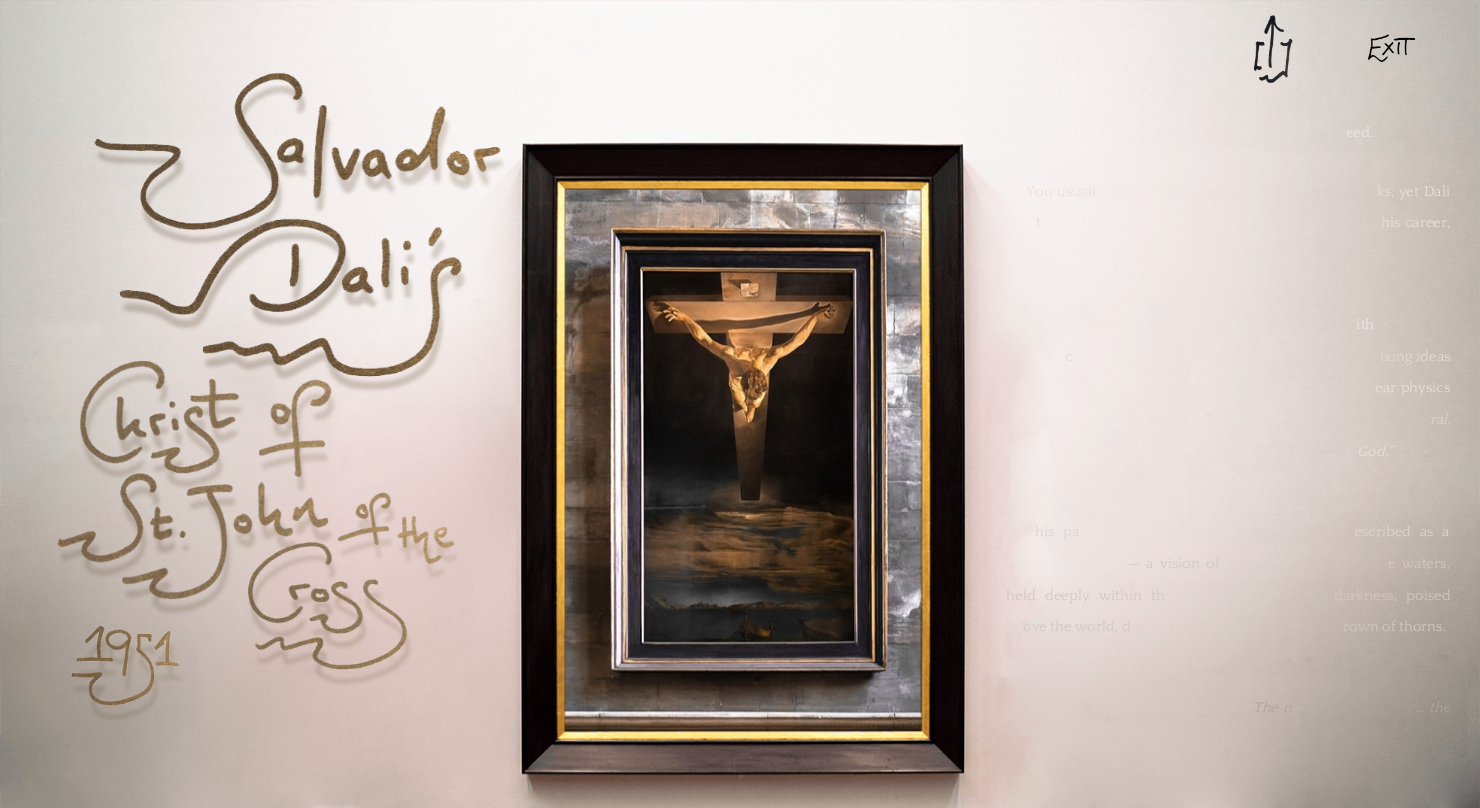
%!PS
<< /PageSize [1480 808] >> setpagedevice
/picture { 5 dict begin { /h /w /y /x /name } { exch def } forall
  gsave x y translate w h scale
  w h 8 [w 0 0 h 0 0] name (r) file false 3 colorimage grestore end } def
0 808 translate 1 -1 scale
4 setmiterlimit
1 setgray
0 0 1480 808 rectfill
(img8.rgb) 556 181 375 594 picture
(img1.rgb) 0 0 1480 808 picture
(img2.rgb) 1264 15 21 53 picture
(img4.rgb) 1253 41 12 31 picture
(img3.rgb) 1259 38 34 46 picture
(img5.rgb) 1367 34 49 29 picture
(img6.rgb) 57 72 444 634 picture
(img7.rgb) 60 85 444 636 picture
/Quattrocento-Bold [14.75 0 0 -14.75 0 0] selectfont
0.914 0.875 0.863 setrgbcolor
1346 137 moveto (eed.) show
/Quattrocento-Regular [14.75 0 0 -14.75 0 0] selectfont
1026 196 moveto 1 0 32 (You usuall) widthshow
1377 196 moveto 1 0 32 (ks, yet Dali) widthshow
1036 227 moveto 1 0 32 (t) widthshow
1381 227 moveto 1 0 32 (his career,) widthshow
/Quattrocento-Bold [14.75 0 0 -14.75 0 0] selectfont
1356 329 moveto 1 0 32 (ith) widthshow
/Quattrocento-Regular [14.75 0 0 -14.75 0 0] selectfont
0.894 0.855 0.839 setrgbcolor
1065 361 moveto (c) show
1380 361 moveto (ixing ideas) show
0.914 0.875 0.863 setrgbcolor
1375 392 moveto 1 0 32 (ear physics) widthshow
/Quattrocento-Italic [14.75 0 0 -14.75 0 0] selectfont
0.875 0.831 0.812 setrgbcolor
1203 424 moveto 8 0 32 (“) widthshow
1430 424 moveto 8 0 32 (ral,) widthshow
0.914 0.875 0.863 setrgbcolor
1357 456 moveto (God.”) show
/Quattrocento-Regular [14.75 0 0 -14.75 0 0] selectfont
0.875 0.831 0.812 setrgbcolor
1035 536 moveto 5 0 32 (his pa) widthshow
1354 536 moveto 5 0 32 (escribed as a) widthshow
0.831 0.784 0.765 setrgbcolor
1128 568 moveto 3 0 32 (— a vision of) widthshow
1388 568 moveto 3 0 32 (e waters,) widthshow
1006 600 moveto 6 0 32 (held deeply within th) widthshow
1334 600 moveto 6 0 32 (darkness, poised) widthshow
1023 631 moveto (ove the world, d) show
1343 631 moveto (rown of thorns.) show
/Quattrocento-Italic [14.75 0 0 -14.75 0 0] selectfont
0.69 0.647 0.616 setrgbcolor
1253 712 moveto 1 0 32 (The n) widthshow
gsave
1006 692 444 74 rectclip
1415 712 moveto 1 0 32 (... the) widthshow
grestore
showpage
